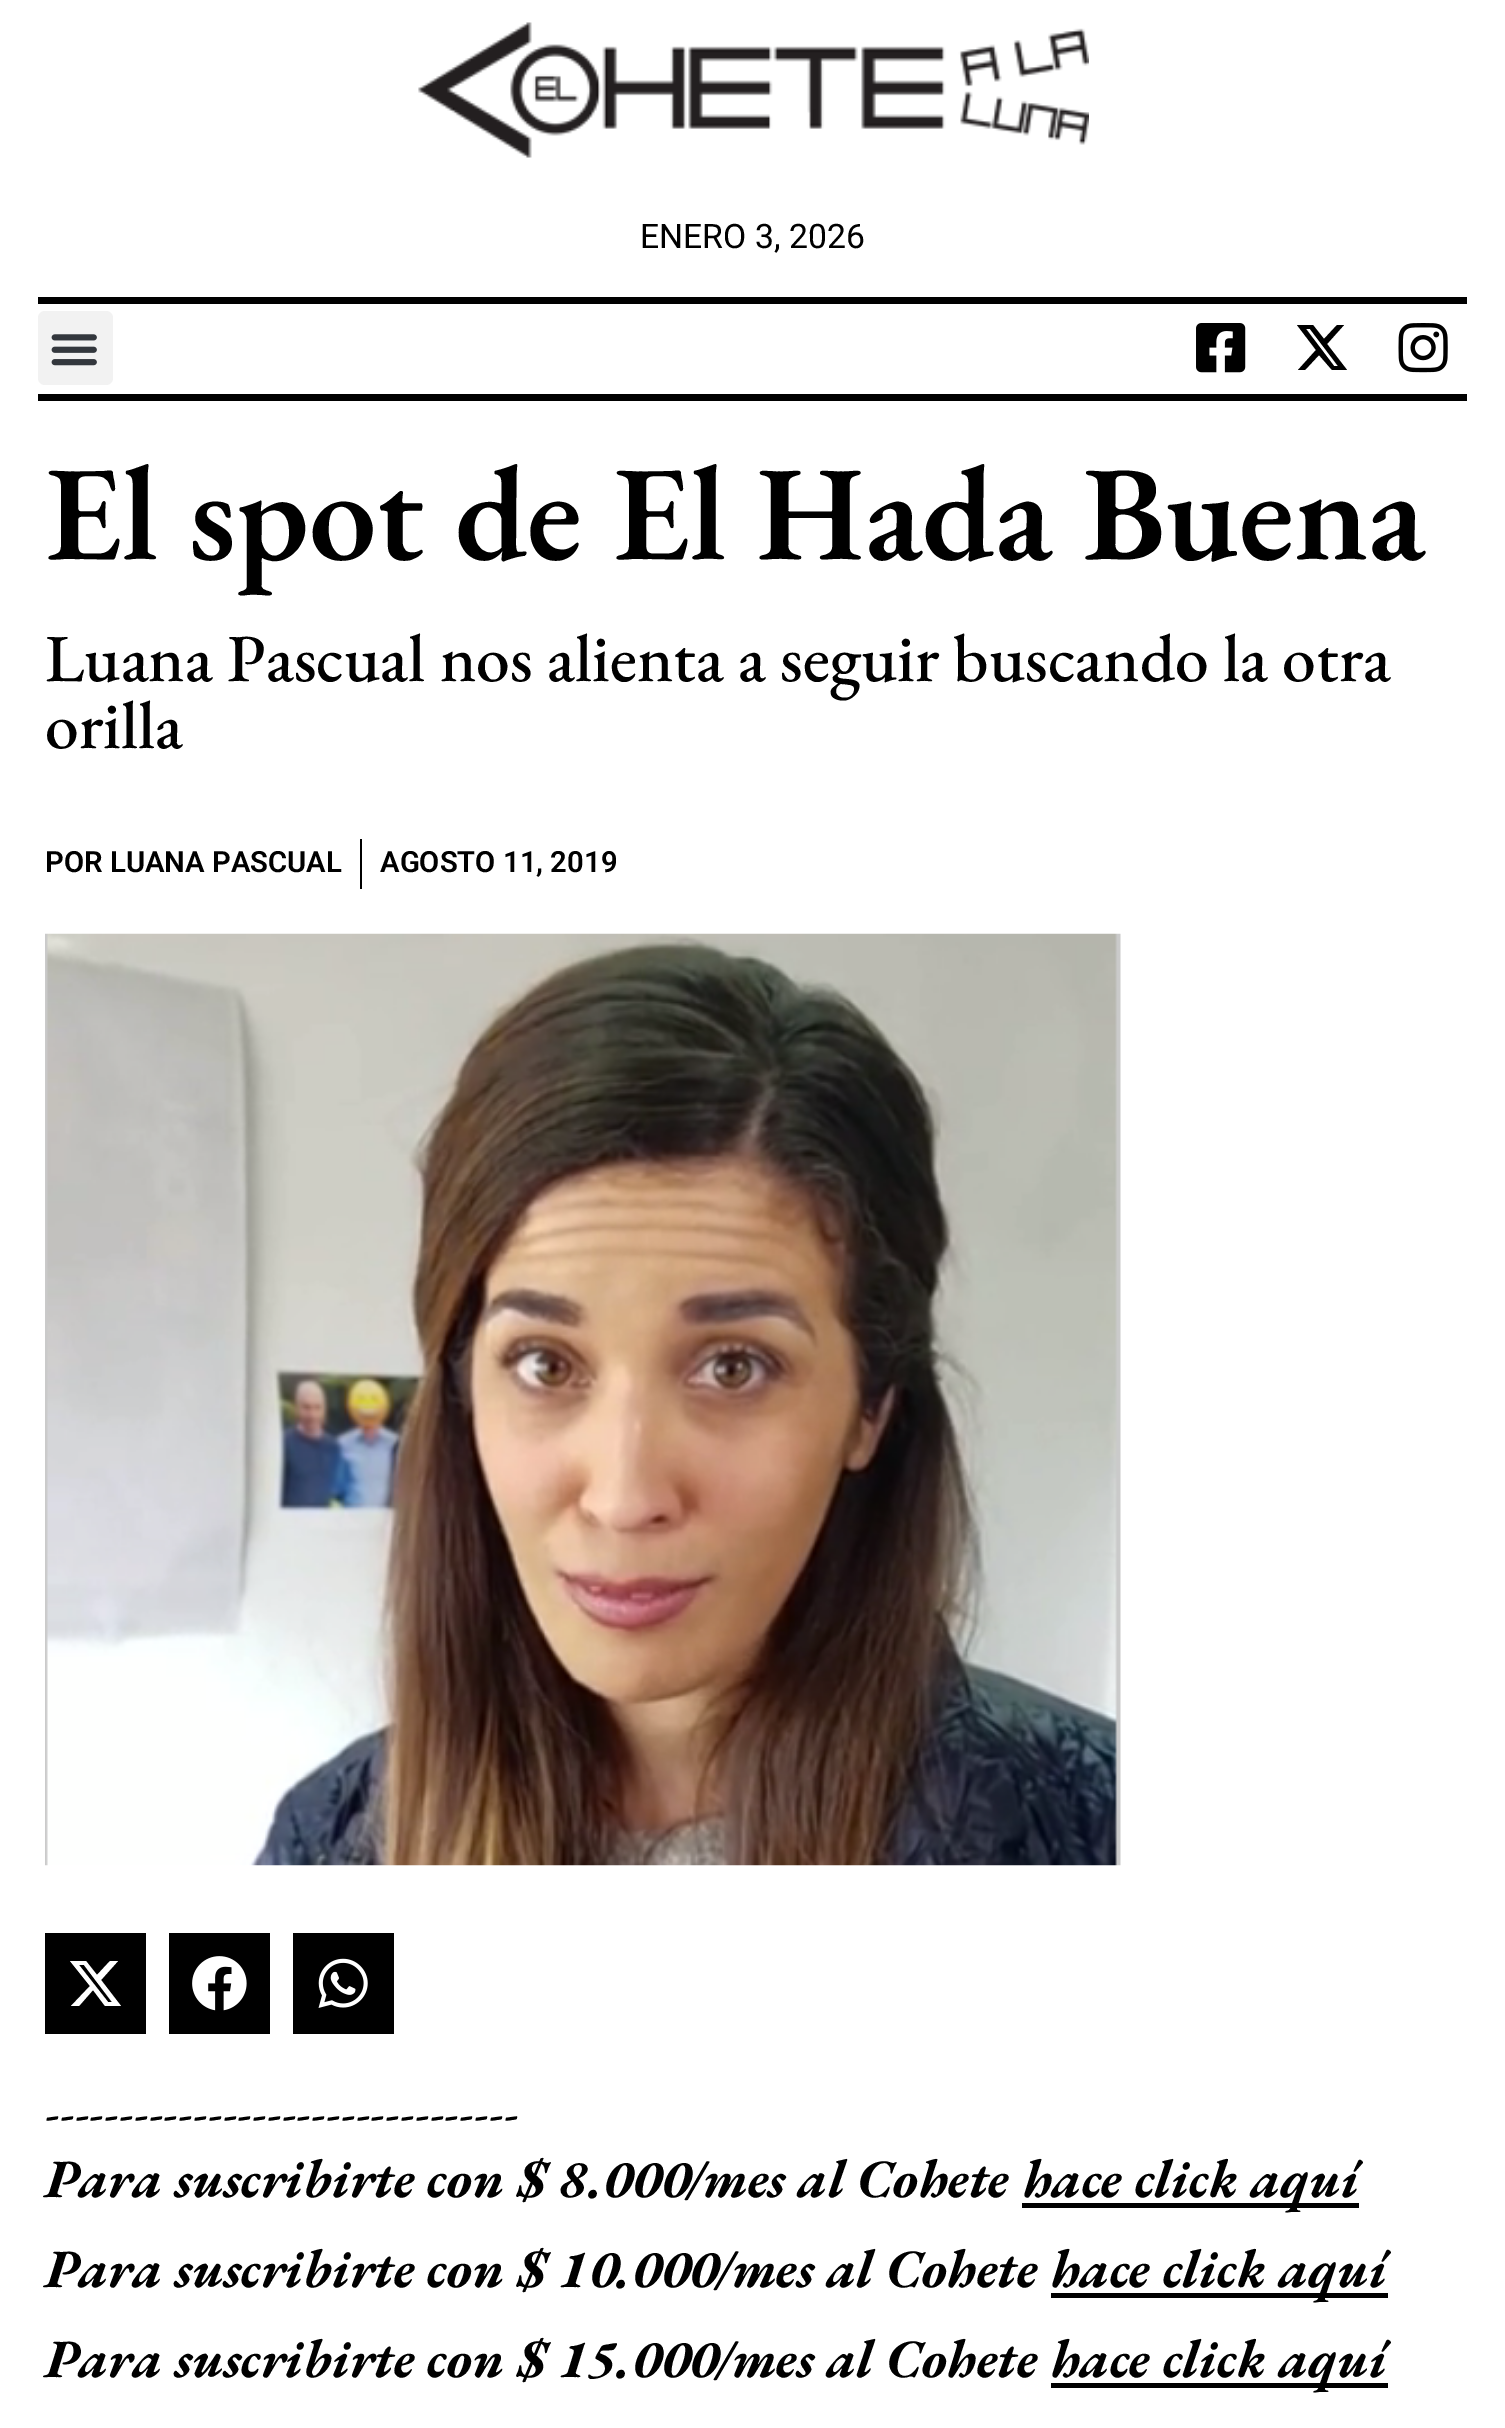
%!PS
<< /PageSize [1505 2428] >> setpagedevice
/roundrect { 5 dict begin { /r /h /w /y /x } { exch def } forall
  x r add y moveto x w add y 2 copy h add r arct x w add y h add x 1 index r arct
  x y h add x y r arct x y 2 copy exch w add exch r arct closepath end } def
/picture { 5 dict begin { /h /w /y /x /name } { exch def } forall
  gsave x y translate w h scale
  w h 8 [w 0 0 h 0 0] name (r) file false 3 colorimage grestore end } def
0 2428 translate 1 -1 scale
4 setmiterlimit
1 setgray
0 0 1505 2428 rectfill
(img1.rgb) 418 22 671 136 picture
/Roboto-Regular [33.75 0 0 -33.75 0 0] selectfont
0 setgray
640 248 moveto (ENERO 3, 2026) show
38 297 1429 7 rectfill
38 394 1429 7 rectfill
0.949 setgray
38 311 75 74 7 roundrect fill
(img2.rgb) 51 334 46 32 picture
(img3.rgb) 1196 323 50 50 picture
0 setgray
newpath 1337 325 moveto 1344 325 lineto 1327 344 lineto 1347 370 lineto 1332 370 lineto 1319 355 lineto 1305 370 lineto 1298 370 lineto 1316 350 lineto 1297 325 lineto 1313 325 lineto 1324 339 lineto closepath 1334 366 moveto 1338 366 lineto 1310 329 lineto 1306 329 lineto closepath fill
(img4.rgb) 1398 323 50 50 picture
/EBGaramond-SemiBold [135 0 0 -135 0 0] selectfont
45 559 moveto (El spot de El Hada Buena) show
/EBGaramond-Medium [67.5 0 0 -67.5 0 0] selectfont
45 681 moveto (Luana Pascual nos alienta a seguir buscando la otra) show
45 748 moveto (orilla) show
/Roboto-SemiBold [29.25 0 0 -29.25 0 0] selectfont
45 872 moveto (POR LUANA PASCUAL) show
360 839 2 50 rectfill
380 872 moveto (AGOSTO 11, 2019) show
(img5.rgb) 45 933 1076 933 picture
45 1933 101 101 rectfill
1 setgray
newpath 110 1961 moveto 118 1961 lineto 101 1980 lineto 121 2006 lineto 105 2006 lineto 93 1990 lineto 79 2006 lineto 71 2006 lineto 90 1986 lineto 70 1961 lineto 86 1961 lineto 97 1975 lineto closepath 108 2002 moveto 112 2002 lineto 84 1965 lineto 79 1965 lineto closepath fill
0 setgray
169 1933 101 101 rectfill
(img6.rgb) 192 1956 55 55 picture
293 1933 101 101 rectfill
(img7.rgb) 318 1958 50 50 picture
/EBGaramond-Regular [54 0 0 -54 0 0] selectfont
45 2130 moveto (--------------------------------) show
/EBGaramond-BoldItalic [54 0 0 -54 0 0] selectfont
45 2197 moveto (Para suscribirte con $ 8.000/mes al Cohete) show
1022 2203 337 5 rectfill
1022 2197 moveto (hace click aquí) show
45 2287 moveto (Para suscribirte con $ 10.000/mes al Cohete) show
1051 2293 337 5 rectfill
1050 2287 moveto (hace click aquí) show
45 2377 moveto (Para suscribirte con $ 15.000/mes al Cohete) show
1051 2383 337 5 rectfill
1050 2377 moveto (hace click aquí) show
showpage
